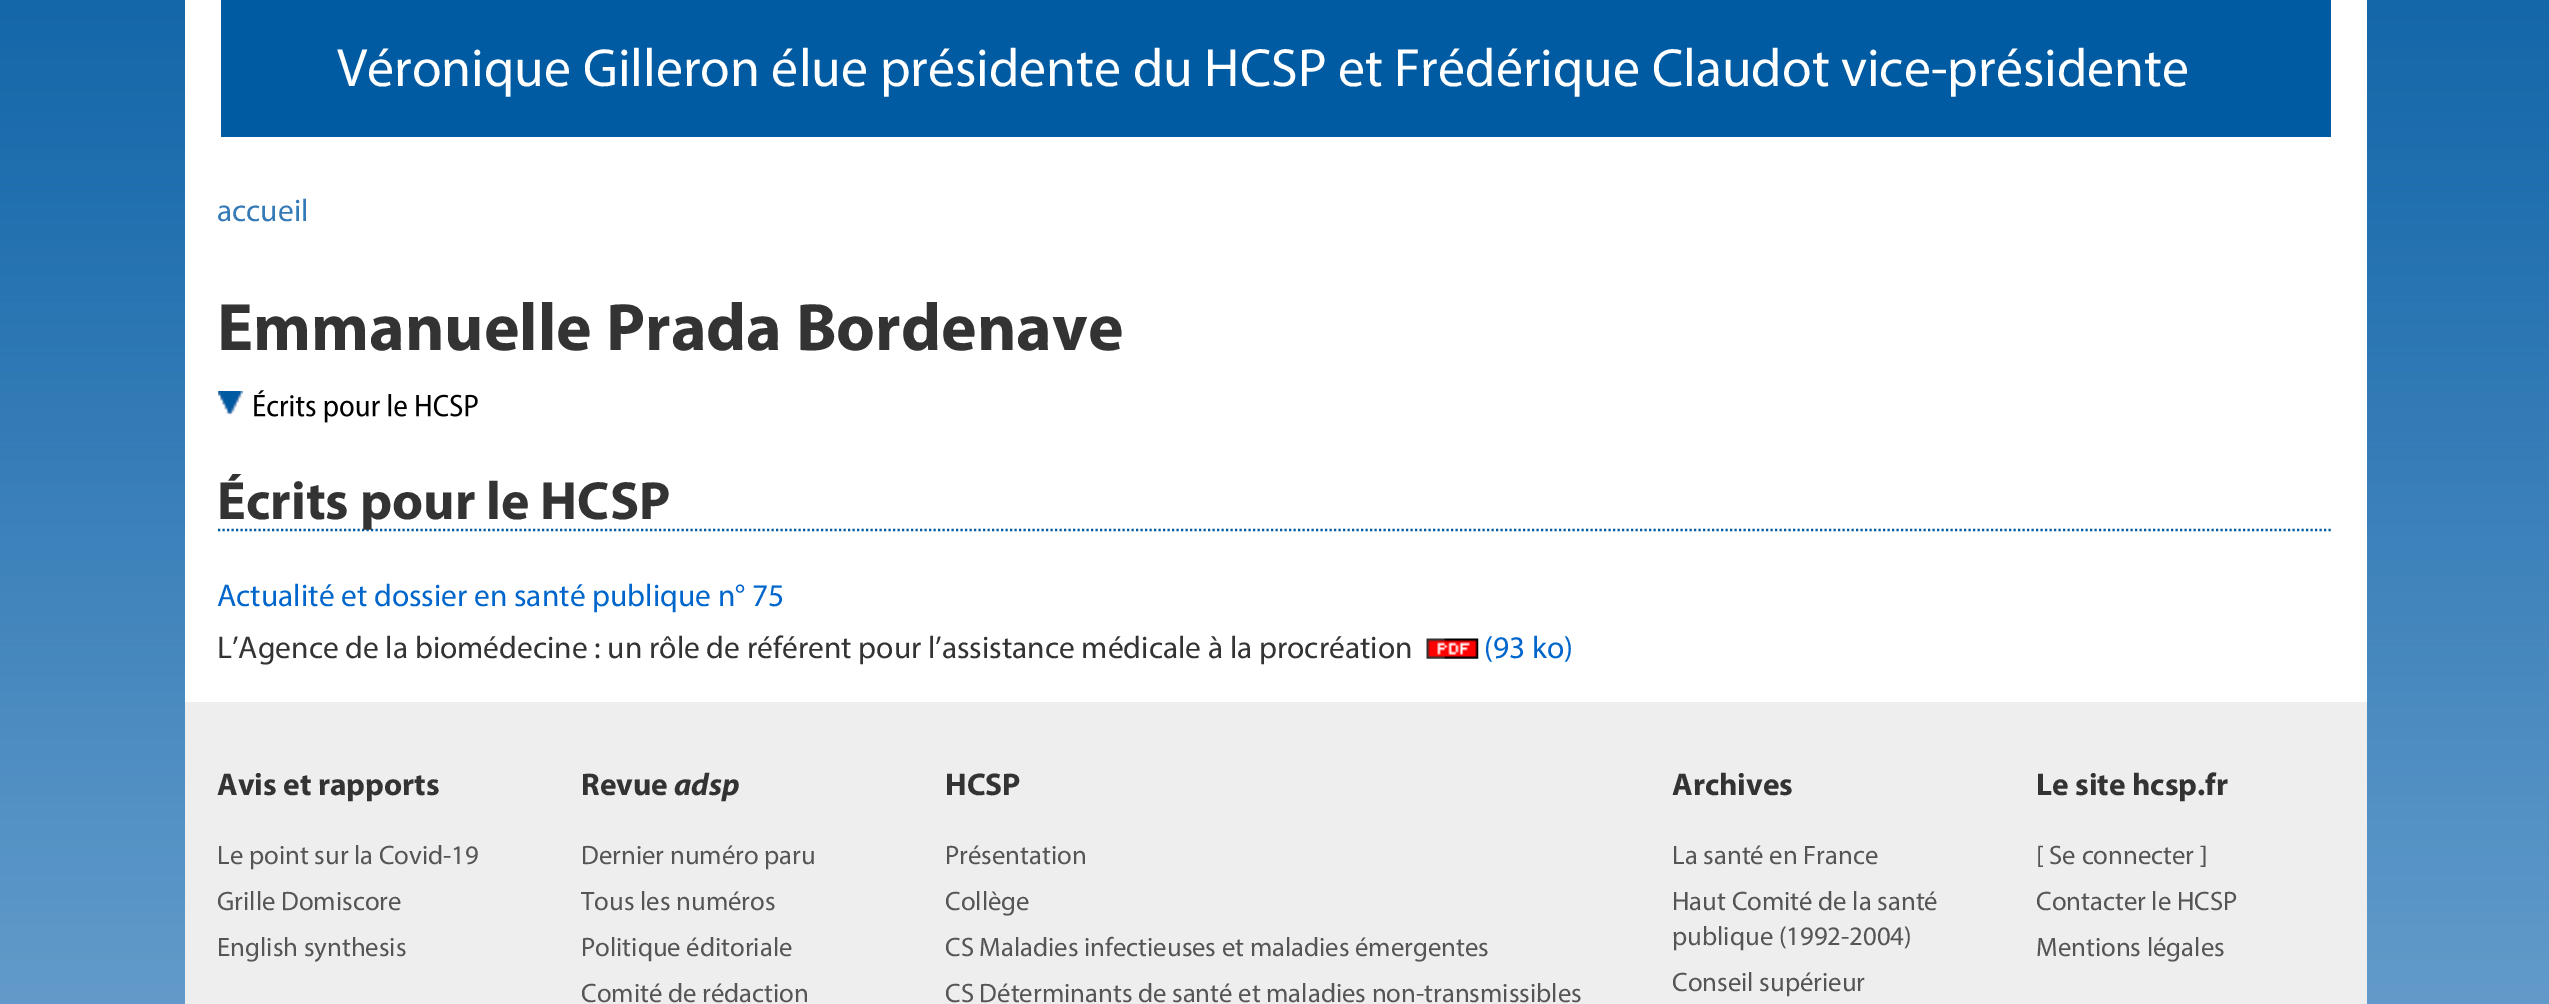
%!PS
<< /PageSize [2549 1004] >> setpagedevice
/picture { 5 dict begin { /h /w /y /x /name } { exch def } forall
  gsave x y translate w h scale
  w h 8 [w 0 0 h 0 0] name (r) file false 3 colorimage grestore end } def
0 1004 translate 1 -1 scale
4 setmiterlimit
1 setgray
0 0 2549 1004 rectfill
(img1.rgb) 0 0 2549 1004 picture
185 0 2182 702 rectfill
0 0.357 0.635 setrgbcolor
221 0 2110 137 rectfill
/Myriad-Regular [54 0 0 -54 0 0] selectfont
1 setgray
337 86 moveto (Véronique Gilleron élue présidente du HCSP et Frédérique Claudot vice-présidente) show
/Myriad-Regular [31.5 0 0 -31.5 0 0] selectfont
0.2 0.478 0.718 setrgbcolor
217 221 moveto (accueil) show
/Myriad-Bold [67.5 0 0 -67.5 0 0] selectfont
0.2 setgray
217 350 moveto (Emmanuelle Prada Bordenave) show
(img2.rgb) 218 391 25 25 picture
(img3.rgb) 254 390 224 33 picture
0 0.357 0.635 setrgbcolor
2.2 setlinewidth
[2.25 2.25] 0 setdash
newpath 218 530 moveto 2333 530 lineto stroke
/Myriad-Bold [54 0 0 -54 0 0] selectfont
0.2 setgray
217 519 moveto (Écrits pour le HCSP) show
/Myriad-Regular [31.5 0 0 -31.5 0 0] selectfont
0 0.4 0.8 setrgbcolor
217 606 moveto (Actualité et dossier en santé publique n° 75) show
0.2 setgray
217 658 moveto (L’Agence de la biomédecine : un rôle de référent pour l’assistance médicale à la procréation) show
(img4.rgb) 1426 638 53 21 picture
0 0.4 0.8 setrgbcolor
1484 658 moveto (\(93 ko\)) show
0.933 setgray
185 702 2182 302 rectfill
/Myriad-Bold [31.5 0 0 -31.5 0 0] selectfont
0.2 setgray
217 795 moveto (Avis et rapports) show
/Myriad-Regular [26.75 0 0 -26.75 0 0] selectfont
0.333 setgray
217 864 moveto (Le point sur la Covid-19) show
217 910 moveto (Grille Domiscore) show
217 956 moveto (English synthesis) show
/Myriad-Bold [31.5 0 0 -31.5 0 0] selectfont
0.2 setgray
581 795 moveto (Revue) show
/Myriad-BoldItalic [31.5 0 0 -31.5 0 0] selectfont
674 795 moveto (adsp) show
/Myriad-Regular [26.75 0 0 -26.75 0 0] selectfont
0.333 setgray
581 864 moveto (Dernier numéro paru) show
581 910 moveto (Tous les numéros) show
581 956 moveto (Politique éditoriale) show
581 1002 moveto (Comité de rédaction) show
/Myriad-Bold [31.5 0 0 -31.5 0 0] selectfont
0.2 setgray
945 795 moveto (HCSP) show
/Myriad-Regular [26.75 0 0 -26.75 0 0] selectfont
0.333 setgray
945 864 moveto (Présentation) show
945 910 moveto (Collège) show
945 956 moveto (CS Maladies infectieuses et maladies émergentes) show
945 1002 moveto (CS Déterminants de santé et maladies non-transmissibles) show
/Myriad-Bold [31.5 0 0 -31.5 0 0] selectfont
0.2 setgray
1672 795 moveto (Archives) show
/Myriad-Regular [26.75 0 0 -26.75 0 0] selectfont
0.333 setgray
1672 864 moveto (La santé en France) show
1672 910 moveto (Haut Comité de la santé) show
1672 945 moveto (publique \(1992-2004\)) show
1672 991 moveto (Conseil supérieur) show
/Myriad-Bold [31.5 0 0 -31.5 0 0] selectfont
0.2 setgray
2036 795 moveto (Le site hcsp.fr) show
/Myriad-Regular [26.75 0 0 -26.75 0 0] selectfont
0.333 setgray
2036 864 moveto ([ Se connecter ]) show
2036 910 moveto (Contacter le HCSP) show
2036 956 moveto (Mentions légales) show
showpage
